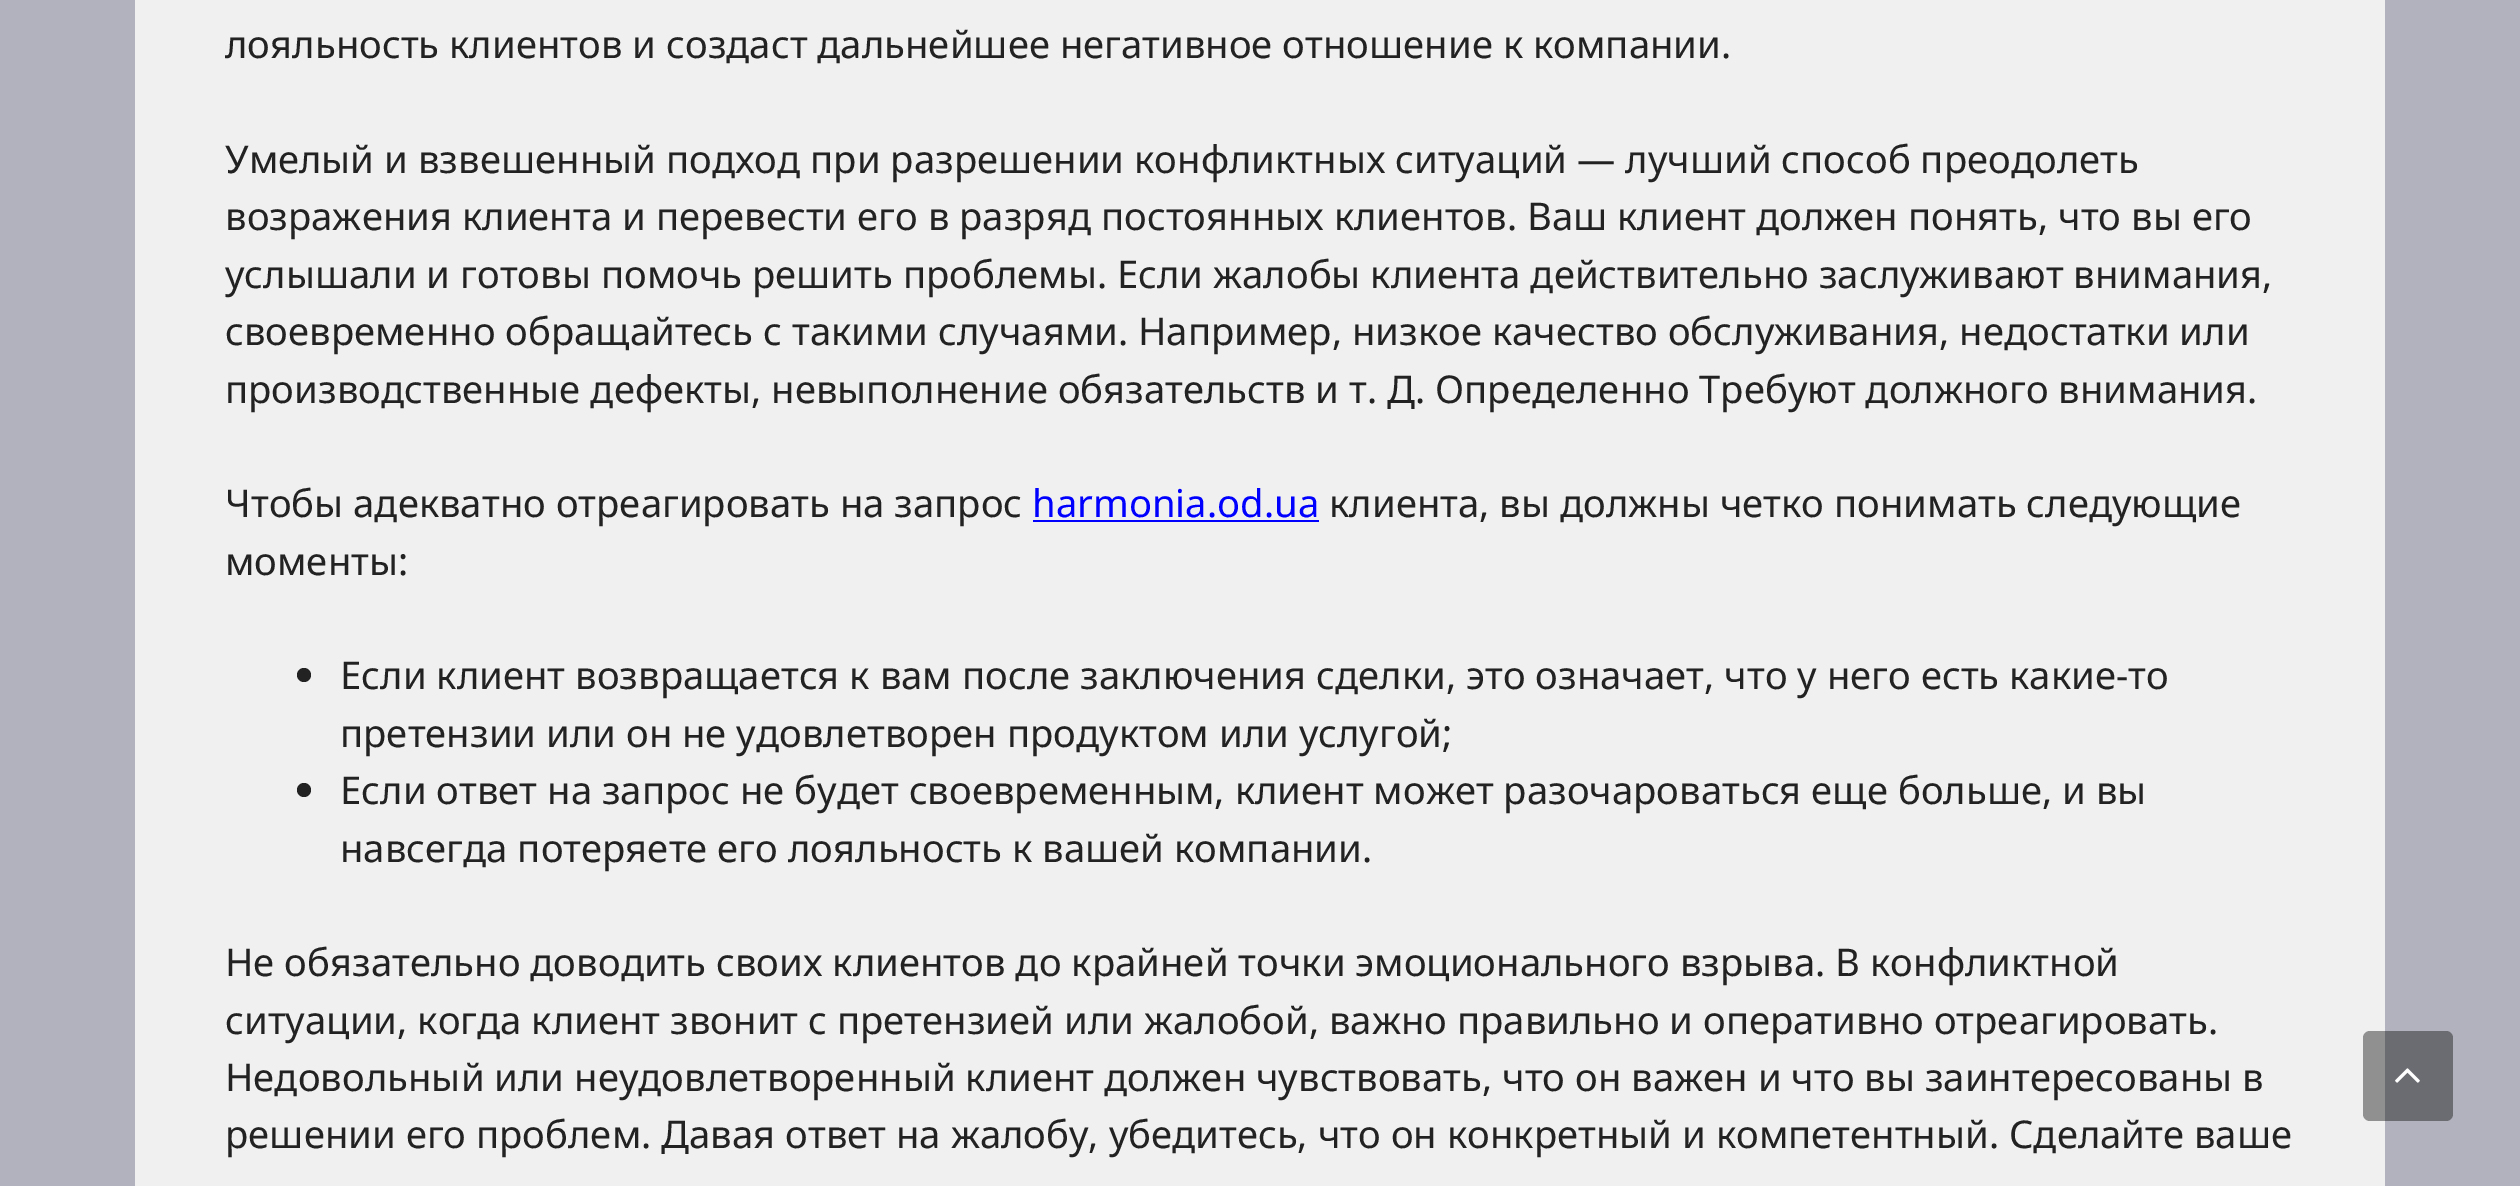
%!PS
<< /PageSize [2520 1186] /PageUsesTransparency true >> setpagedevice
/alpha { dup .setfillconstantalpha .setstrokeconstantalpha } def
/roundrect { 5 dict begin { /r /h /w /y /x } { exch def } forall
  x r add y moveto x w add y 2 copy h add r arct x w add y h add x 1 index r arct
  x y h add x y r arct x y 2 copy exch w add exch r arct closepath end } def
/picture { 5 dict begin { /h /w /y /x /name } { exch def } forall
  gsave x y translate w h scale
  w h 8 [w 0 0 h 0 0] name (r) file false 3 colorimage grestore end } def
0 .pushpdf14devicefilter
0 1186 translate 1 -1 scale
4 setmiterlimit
0.698 0.698 0.745 setrgbcolor
0 0 2520 1186 rectfill
0.941 setgray
135 0 2250 1186 rectfill
/NotoSans-Regular [38.25 0 0 -38.25 0 0] selectfont
0.133 setgray
225 58 moveto (лояльность клиентов и создаст дальнейшее негативное отношение к компании.) show
225 173 moveto (Умелый и взвешенный подход при разрешении конфликтных ситуаций — лучший способ преодолеть) show
225 230 moveto (возражения клиента и перевести его в разряд постоянных клиентов. Ваш клиент должен понять, что вы его) show
225 288 moveto (услышали и готовы помочь решить проблемы. Если жалобы клиента действительно заслуживают внимания,) show
225 345 moveto (своевременно обращайтесь с такими случаями. Например, низкое качество обслуживания, недостатки или) show
225 403 moveto (производственные дефекты, невыполнение обязательств и т. Д. Определенно Требуют должного внимания.) show
225 517 moveto (Чтобы адекватно отреагировать на запрос) show
0 0 1 setrgbcolor
1032 517 moveto (harmonia.od.ua) show
1033 520 286 2 rectfill
0.133 setgray
1329 517 moveto (клиента, вы должны четко понимать следующие) show
225 575 moveto (моменты:) show
newpath 304 675 7 0 360 arc closepath fill
340 689 moveto (Если клиент возвращается к вам после заключения сделки, это означает, что у него есть какие-то) show
340 747 moveto (претензии или он не удовлетворен продуктом или услугой;) show
newpath 304 790 7 0 360 arc closepath fill
340 804 moveto (Если ответ на запрос не будет своевременным, клиент может разочароваться еще больше, и вы) show
340 862 moveto (навсегда потеряете его лояльность к вашей компании.) show
225 976 moveto (Не обязательно доводить своих клиентов до крайней точки эмоционального взрыва. В конфликтной) show
225 1034 moveto (ситуации, когда клиент звонит с претензией или жалобой, важно правильно и оперативно отреагировать.) show
225 1091 moveto (Недовольный или неудовлетворенный клиент должен чувствовать, что он важен и что вы заинтересованы в) show
225 1148 moveto (решении его проблем. Давая ответ на жалобу, убедитесь, что он конкретный и компетентный. Сделайте ваше) show
0.4 alpha
0 setgray
2363 1031 90 90 7 roundrect fill
1 alpha
(img1.rgb) 2395 1068 25 15 picture
.poppdf14devicefilter showpage
